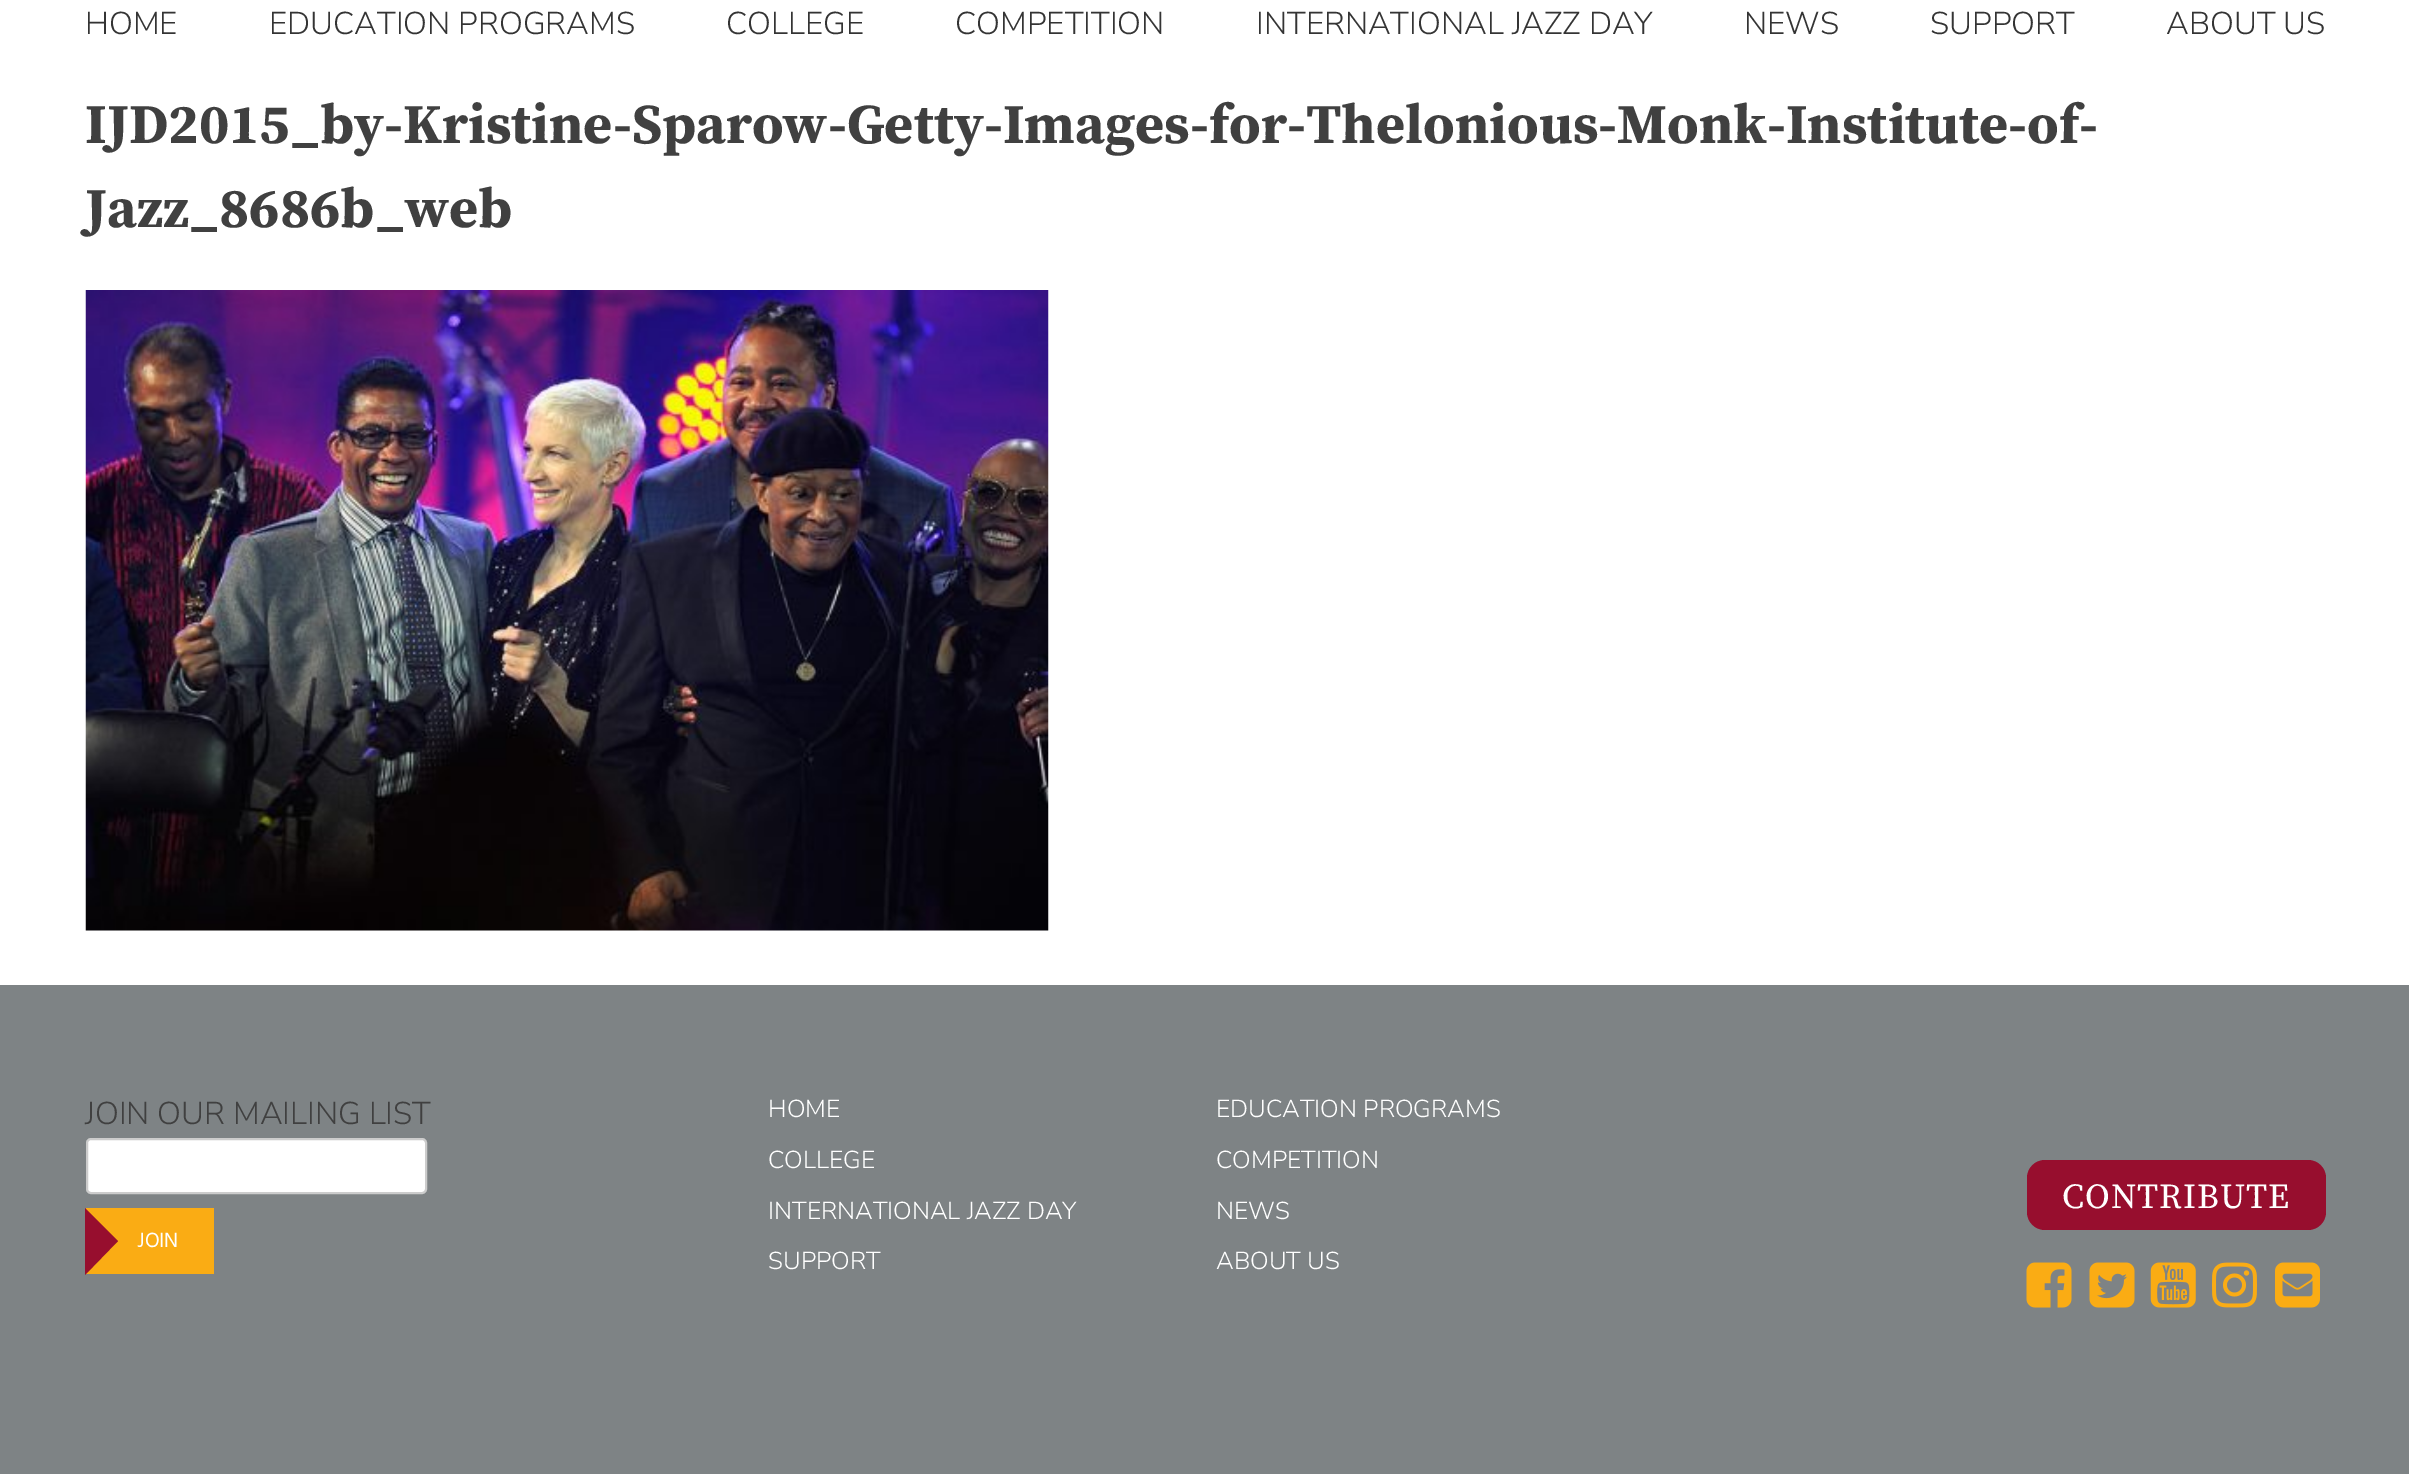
%!PS
<< /PageSize [2409 1474] >> setpagedevice
/roundrect { 5 dict begin { /r /h /w /y /x } { exch def } forall
  x r add y moveto x w add y 2 copy h add r arct x w add y h add x 1 index r arct
  x y h add x y r arct x y 2 copy exch w add exch r arct closepath end } def
/picture { 5 dict begin { /h /w /y /x /name } { exch def } forall
  gsave x y translate w h scale
  w h 8 [w 0 0 h 0 0] name (r) file false 3 colorimage grestore end } def
0 1474 translate 1 -1 scale
4 setmiterlimit
1 setgray
0 0 2409 1474 rectfill
/NunitoSans-Light [31.5 0 0 -31.5 0 0] selectfont
0.204 setgray
85 34 moveto (HOME) show
269 34 moveto (EDUCATION PROGRAMS) show
726 34 moveto (COLLEGE) show
955 34 moveto (COMPETITION) show
1256 34 moveto (INTERNATIONAL JAZZ DAY) show
1744 34 moveto (NEWS) show
1930 34 moveto (SUPPORT) show
2166 34 moveto (ABOUT US) show
/SourceSerifPro-Bold [56 0 0 -56 0 0] selectfont
0.251 setgray
85 143 moveto (IJD2015_by-Kristine-Sparow-Getty-Images-for-Thelonious-Monk-Institute-of-) show
85 227 moveto (Jazz_8686b_web) show
(img1.rgb) 85 290 964 641 picture
0.494 0.514 0.522 setrgbcolor
0 985 2409 489 rectfill
/NunitoSans-Light [31.5 0 0 -31.5 0 0] selectfont
0.251 setgray
85 1124 moveto (JOIN OUR MAILING LIST) show
1 setgray
87 1139 339 54 4 roundrect gsave fill grestore
0.8 setgray
2 setlinewidth
stroke
0.98 0.675 0.078 setrgbcolor
86 1208 128 66 rectfill
0.592 0.055 0.18 setrgbcolor
newpath 85 1208 moveto 85 1275 lineto 118 1241 lineto closepath fill
/HindSiliguri-Regular [21 0 0 -21 0 0] selectfont
1 setgray
137 1247 moveto (JOIN) show
/NunitoSans-Light [24.5 0 0 -24.5 0 0] selectfont
768 1117 moveto (HOME) show
1216 1117 moveto (EDUCATION PROGRAMS) show
768 1168 moveto (COLLEGE) show
1216 1168 moveto (COMPETITION) show
768 1219 moveto (INTERNATIONAL JAZZ DAY) show
1216 1219 moveto (NEWS) show
768 1269 moveto (SUPPORT) show
1216 1269 moveto (ABOUT US) show
0.592 0.055 0.18 setrgbcolor
2027 1160 299 70 18 roundrect fill
/SourceSerifPro-Regular [35 0 0 -35 0 0] selectfont
1 setgray
2062 1208 moveto 0.9 0 (CONTRIBUTE) ashow
(img2.rgb) 2026 1262 46 46 picture
(img3.rgb) 2089 1262 46 46 picture
(img4.rgb) 2150 1262 46 46 picture
(img5.rgb) 2212 1262 45 46 picture
(img6.rgb) 2275 1262 45 46 picture
showpage
